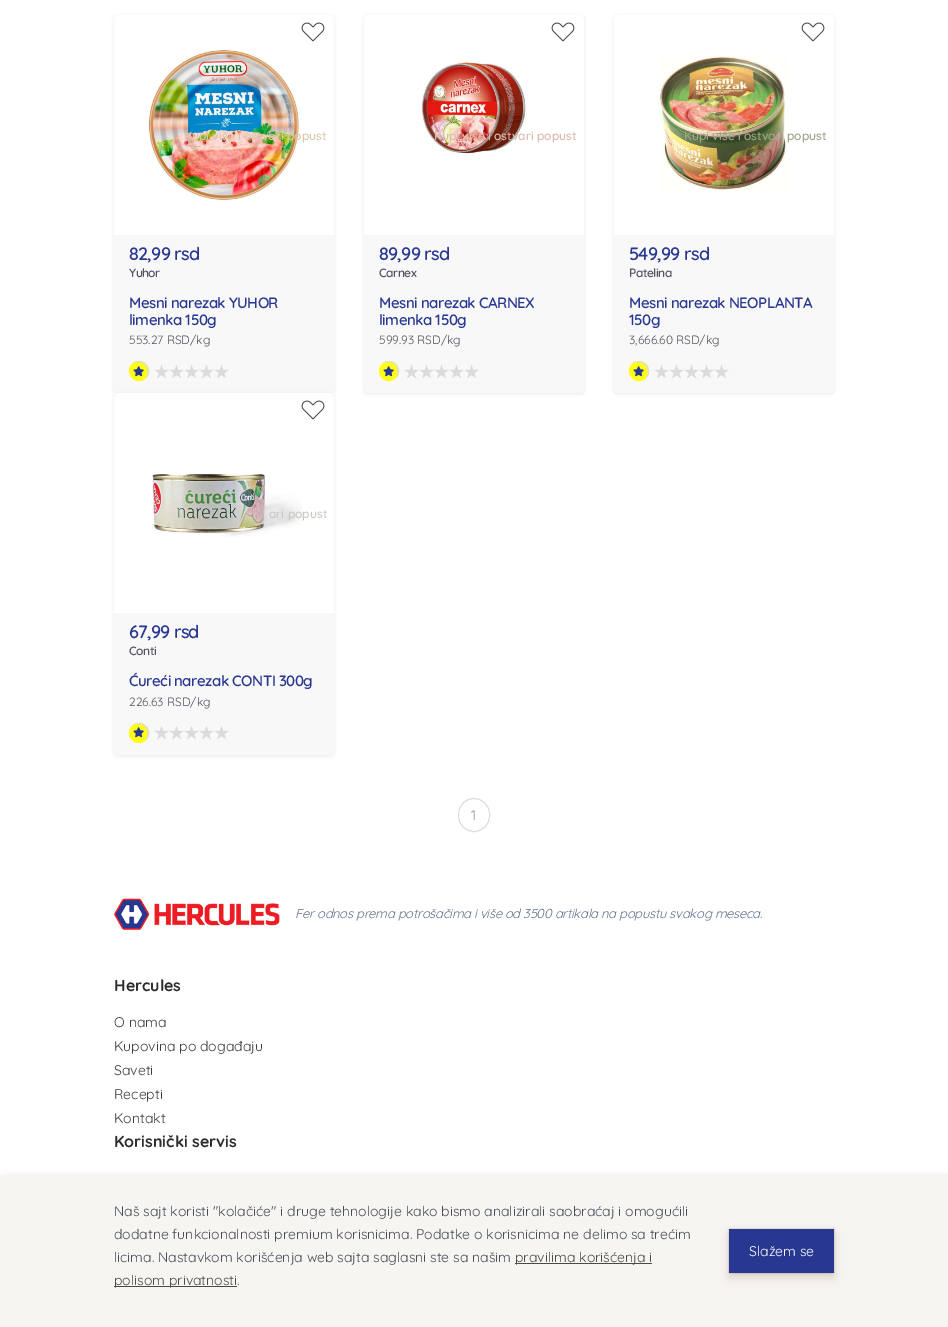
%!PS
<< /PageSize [948 1327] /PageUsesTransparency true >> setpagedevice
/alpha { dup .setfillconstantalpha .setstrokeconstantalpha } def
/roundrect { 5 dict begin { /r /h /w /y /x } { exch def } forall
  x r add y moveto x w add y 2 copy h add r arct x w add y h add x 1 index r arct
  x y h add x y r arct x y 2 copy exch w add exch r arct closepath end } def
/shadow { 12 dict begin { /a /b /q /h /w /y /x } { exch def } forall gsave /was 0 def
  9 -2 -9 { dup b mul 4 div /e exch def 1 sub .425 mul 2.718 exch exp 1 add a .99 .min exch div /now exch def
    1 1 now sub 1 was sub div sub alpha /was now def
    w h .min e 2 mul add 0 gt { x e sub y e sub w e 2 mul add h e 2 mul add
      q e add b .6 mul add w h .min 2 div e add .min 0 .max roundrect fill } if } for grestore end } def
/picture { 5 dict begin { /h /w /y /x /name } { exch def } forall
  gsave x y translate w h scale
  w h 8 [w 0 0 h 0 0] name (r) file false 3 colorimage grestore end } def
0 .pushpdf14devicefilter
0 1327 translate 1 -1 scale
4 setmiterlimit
1 setgray
0 0 948 1327 rectfill
gsave
newpath 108 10 moveto 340 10 lineto 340 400 lineto 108 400 lineto closepath 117 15 moveto 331 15 lineto 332.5 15 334 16.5 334 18 curveto 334 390 lineto 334 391.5 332.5 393 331 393 curveto 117 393 lineto 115.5 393 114 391.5 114 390 curveto 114 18 lineto 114 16.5 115.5 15 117 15 curveto closepath eoclip newpath
0.114 0.208 0.365 setrgbcolor
114 16 220 378 3 1.5 0.1 shadow
grestore
(img1.rgb) 301 22 24 20 picture
(img2.rgb) 148 49 153 153 picture
/Quicksand-SemiBold [12 0 0 -12 0 0] selectfont
0.847 0.788 0.655 setrgbcolor
184 140 moveto (Kupi više i ostvari popust) show
0.77 alpha
0.965 0.965 0.969 setrgbcolor
114 235 220 158 rectfill
/Quicksand-SemiBold [18 0 0 -18 0 0] selectfont
1 alpha
0.157 0.22 0.569 setrgbcolor
129 260 moveto -0.75 0 (82,99 rsd) ashow
/Quicksand-SemiBold [12 0 0 -12 0 0] selectfont
0.322 0.322 0.376 setrgbcolor
129 277 moveto -0.5 0 (Yuhor) ashow
/Quicksand-SemiBold [15 0 0 -15 0 0] selectfont
0.157 0.22 0.569 setrgbcolor
129 308 moveto -0.5 0 (Mesni narezak YUHOR) ashow
129 325 moveto -0.5 0 (limenka 150g) ashow
/Quicksand-Regular [12 0 0 -12 0 0] selectfont
0.322 0.322 0.376 setrgbcolor
129 344 moveto (553.27 RSD/kg) show
1 1 0.075 setrgbcolor
newpath 139 371 10 0 360 arc closepath fill
0.867 setgray
newpath 138 362 moveto 147.5 362 150 372.5 145.5 378.5 curveto 156 369.5 141.5 354.5 132 364 curveto 133.5 363 135.5 362 138 362 curveto closepath fill
(img3.rgb) 133 366 11 11 picture
(img4.rgb) 154 365 15 14 picture
(img4.rgb) 169 365 15 14 picture
(img4.rgb) 184 365 15 14 picture
(img4.rgb) 199 365 15 14 picture
(img4.rgb) 214 365 15 14 picture
gsave
newpath 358 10 moveto 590 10 lineto 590 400 lineto 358 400 lineto closepath 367 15 moveto 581 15 lineto 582.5 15 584 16.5 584 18 curveto 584 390 lineto 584 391.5 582.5 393 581 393 curveto 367 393 lineto 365.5 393 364 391.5 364 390 curveto 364 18 lineto 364 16.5 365.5 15 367 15 curveto closepath eoclip newpath
0.114 0.208 0.365 setrgbcolor
364 16 220 378 3 1.5 0.1 shadow
grestore
(img1.rgb) 551 22 24 20 picture
(img5.rgb) 421 59 105 97 picture
/Quicksand-SemiBold [12 0 0 -12 0 0] selectfont
0.863 0.733 0.698 setrgbcolor
434 140 moveto (Kupi više i ostvari popust) show
0.77 alpha
0.965 0.965 0.969 setrgbcolor
364 235 220 158 rectfill
/Quicksand-SemiBold [18 0 0 -18 0 0] selectfont
1 alpha
0.157 0.22 0.569 setrgbcolor
379 260 moveto -0.75 0 (89,99 rsd) ashow
/Quicksand-SemiBold [12 0 0 -12 0 0] selectfont
0.322 0.322 0.376 setrgbcolor
379 277 moveto -0.5 0 (Carnex) ashow
/Quicksand-SemiBold [15 0 0 -15 0 0] selectfont
0.157 0.22 0.569 setrgbcolor
379 308 moveto -0.5 0 (Mesni narezak CARNEX) ashow
379 325 moveto -0.5 0 (limenka 150g) ashow
/Quicksand-Regular [12 0 0 -12 0 0] selectfont
0.322 0.322 0.376 setrgbcolor
379 344 moveto (599.93 RSD/kg) show
1 1 0.075 setrgbcolor
newpath 389 371 10 0 360 arc closepath fill
0.867 setgray
newpath 388 362 moveto 397.5 362 400 372.5 395.5 378.5 curveto 406 369.5 391.5 354.5 382 364 curveto 383.5 363 385.5 362 388 362 curveto closepath fill
(img3.rgb) 383 366 11 11 picture
(img4.rgb) 404 365 15 14 picture
(img4.rgb) 419 365 15 14 picture
(img4.rgb) 434 365 15 14 picture
(img4.rgb) 449 365 15 14 picture
(img4.rgb) 464 365 15 14 picture
gsave
newpath 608 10 moveto 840 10 lineto 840 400 lineto 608 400 lineto closepath 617 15 moveto 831 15 lineto 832.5 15 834 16.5 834 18 curveto 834 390 lineto 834 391.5 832.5 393 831 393 curveto 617 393 lineto 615.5 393 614 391.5 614 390 curveto 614 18 lineto 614 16.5 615.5 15 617 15 curveto closepath eoclip newpath
0.114 0.208 0.365 setrgbcolor
614 16 220 378 3 1.5 0.1 shadow
grestore
(img1.rgb) 801 22 24 20 picture
(img6.rgb) 658 54 130 139 picture
/Quicksand-SemiBold [12 0 0 -12 0 0] selectfont
0.624 0.643 0.545 setrgbcolor
684 140 moveto (Kupi više i ostvari popust) show
0.77 alpha
0.965 0.965 0.969 setrgbcolor
614 235 220 158 rectfill
/Quicksand-SemiBold [18 0 0 -18 0 0] selectfont
1 alpha
0.157 0.22 0.569 setrgbcolor
629 260 moveto -0.75 0 (549,99 rsd) ashow
/Quicksand-SemiBold [12 0 0 -12 0 0] selectfont
0.322 0.322 0.376 setrgbcolor
629 277 moveto -0.5 0 (Patelina) ashow
/Quicksand-SemiBold [15 0 0 -15 0 0] selectfont
0.157 0.22 0.569 setrgbcolor
629 308 moveto -0.5 0 (Mesni narezak NEOPLANTA) ashow
629 325 moveto -0.5 0 (150g) ashow
/Quicksand-Regular [12 0 0 -12 0 0] selectfont
0.322 0.322 0.376 setrgbcolor
629 344 moveto (3,666.60 RSD/kg) show
1 1 0.075 setrgbcolor
newpath 639 371 10 0 360 arc closepath fill
0.867 setgray
newpath 638 362 moveto 647.5 362 650 372.5 645.5 378.5 curveto 656 369.5 641.5 354.5 632 364 curveto 633.5 363 635.5 362 638 362 curveto closepath fill
(img3.rgb) 633 366 11 11 picture
(img4.rgb) 654 365 15 14 picture
(img4.rgb) 669 365 15 14 picture
(img4.rgb) 684 365 15 14 picture
(img4.rgb) 699 365 15 14 picture
(img4.rgb) 714 365 15 14 picture
1 setgray
113 393 222 3 rectfill
gsave
newpath 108 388 moveto 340 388 lineto 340 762 lineto 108 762 lineto closepath 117 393 moveto 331 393 lineto 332.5 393 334 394.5 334 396 curveto 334 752 lineto 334 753.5 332.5 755 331 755 curveto 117 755 lineto 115.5 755 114 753.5 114 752 curveto 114 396 lineto 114 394.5 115.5 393 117 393 curveto closepath eoclip newpath
0.114 0.208 0.365 setrgbcolor
114 394 220 362 3 1.5 0.1 shadow
grestore
(img1.rgb) 301 400 24 20 picture
(img7.rgb) 152 473 151 64 picture
/Quicksand-SemiBold [12 0 0 -12 0 0] selectfont
0.796 0.792 0.776 setrgbcolor
269 518 moveto (ari popust) show
0.77 alpha
0.965 0.965 0.969 setrgbcolor
114 613 220 142 rectfill
/Quicksand-SemiBold [18 0 0 -18 0 0] selectfont
1 alpha
0.157 0.22 0.569 setrgbcolor
129 638 moveto -0.75 0 (67,99 rsd) ashow
/Quicksand-SemiBold [12 0 0 -12 0 0] selectfont
0.322 0.322 0.376 setrgbcolor
129 655 moveto -0.5 0 (Conti) ashow
/Quicksand-SemiBold [15 0 0 -15 0 0] selectfont
0.157 0.22 0.569 setrgbcolor
129 686 moveto -0.5 0 (Ćureći narezak CONTI 300g) ashow
/Quicksand-Regular [12 0 0 -12 0 0] selectfont
0.322 0.322 0.376 setrgbcolor
129 706 moveto (226.63 RSD/kg) show
1 1 0.075 setrgbcolor
newpath 139 733 10 0 360 arc closepath fill
0.867 setgray
newpath 138 724 moveto 147.5 724 150 734.5 145.5 740.5 curveto 156 731.5 141.5 716.5 132 726 curveto 133.5 725 135.5 724 138 724 curveto closepath fill
(img3.rgb) 133 727 11 11 picture
(img4.rgb) 154 726 15 14 picture
(img4.rgb) 169 726 15 14 picture
(img4.rgb) 184 726 15 14 picture
(img4.rgb) 199 726 15 14 picture
(img4.rgb) 214 726 15 14 picture
458.5 798.5 31 33 15.5 roundrect stroke
/Quicksand-Regular [14 0 0 -14 0 0] selectfont
0.58 0.557 0.557 setrgbcolor
471 820 moveto (1) show
(img8.rgb) 114 898 166 32 picture
/Quicksand-Italic [13 0 0 -13 0 0] selectfont
0.38 0.447 0.557 setrgbcolor
295 918 moveto -0.3 0 (Fer odnos prema potrošačima i više od 3500 artikala na popustu svakog meseca.) ashow
/Quicksand-Bold [16 0 0 -16 0 0] selectfont
0.176 setgray
114 991 moveto (Hercules) show
/Quicksand-Regular [14 0 0 -14 0 0] selectfont
0.239 setgray
114 1027 moveto (O nama) show
114 1051 moveto (Kupovina po događaju) show
114 1075 moveto (Saveti) show
114 1099 moveto (Recepti) show
114 1123 moveto (Kontakt) show
/Quicksand-Bold [16 0 0 -16 0 0] selectfont
0.176 setgray
114 1147 moveto (Korisnički servis) show
0 setgray
5 1180 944 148 0 4.5 0.25 shadow
0.969 0.961 0.949 setrgbcolor
0 1175 948 152 rectfill
/Quicksand-Regular [14 0 0 -14 0 0] selectfont
0.271 0.302 0.345 setrgbcolor
114 1216 moveto (Naš sajt koristi "kolačiće" i druge tehnologije kako bismo analizirali saobraćaj i omogućili) show
114 1239 moveto (dodatne funkcionalnosti premium korisnicima. Podatke o korisnicima ne delimo sa trećim) show
114 1262 moveto (licima. Nastavkom korišćenja web sajta saglasni ste sa našim) show
0.29 0.29 0.282 setrgbcolor
515 1263 137 1 rectfill
515 1262 moveto (pravilima korišćenja i) show
114 1286 123 1 rectfill
114 1285 moveto (polisom privatnosti) show
0.271 0.302 0.345 setrgbcolor
237 1285 moveto (.) show
0.133 setgray
729 1229 105 44 0 1 0.3 shadow
0.267 0.067 0 setrgbcolor
729 1234 105 44 0 5 0.15 shadow
0.157 0.22 0.569 setrgbcolor
729 1229 105 44 rectfill
1 setgray
749 1256 moveto (Slažem se) show
.poppdf14devicefilter showpage
